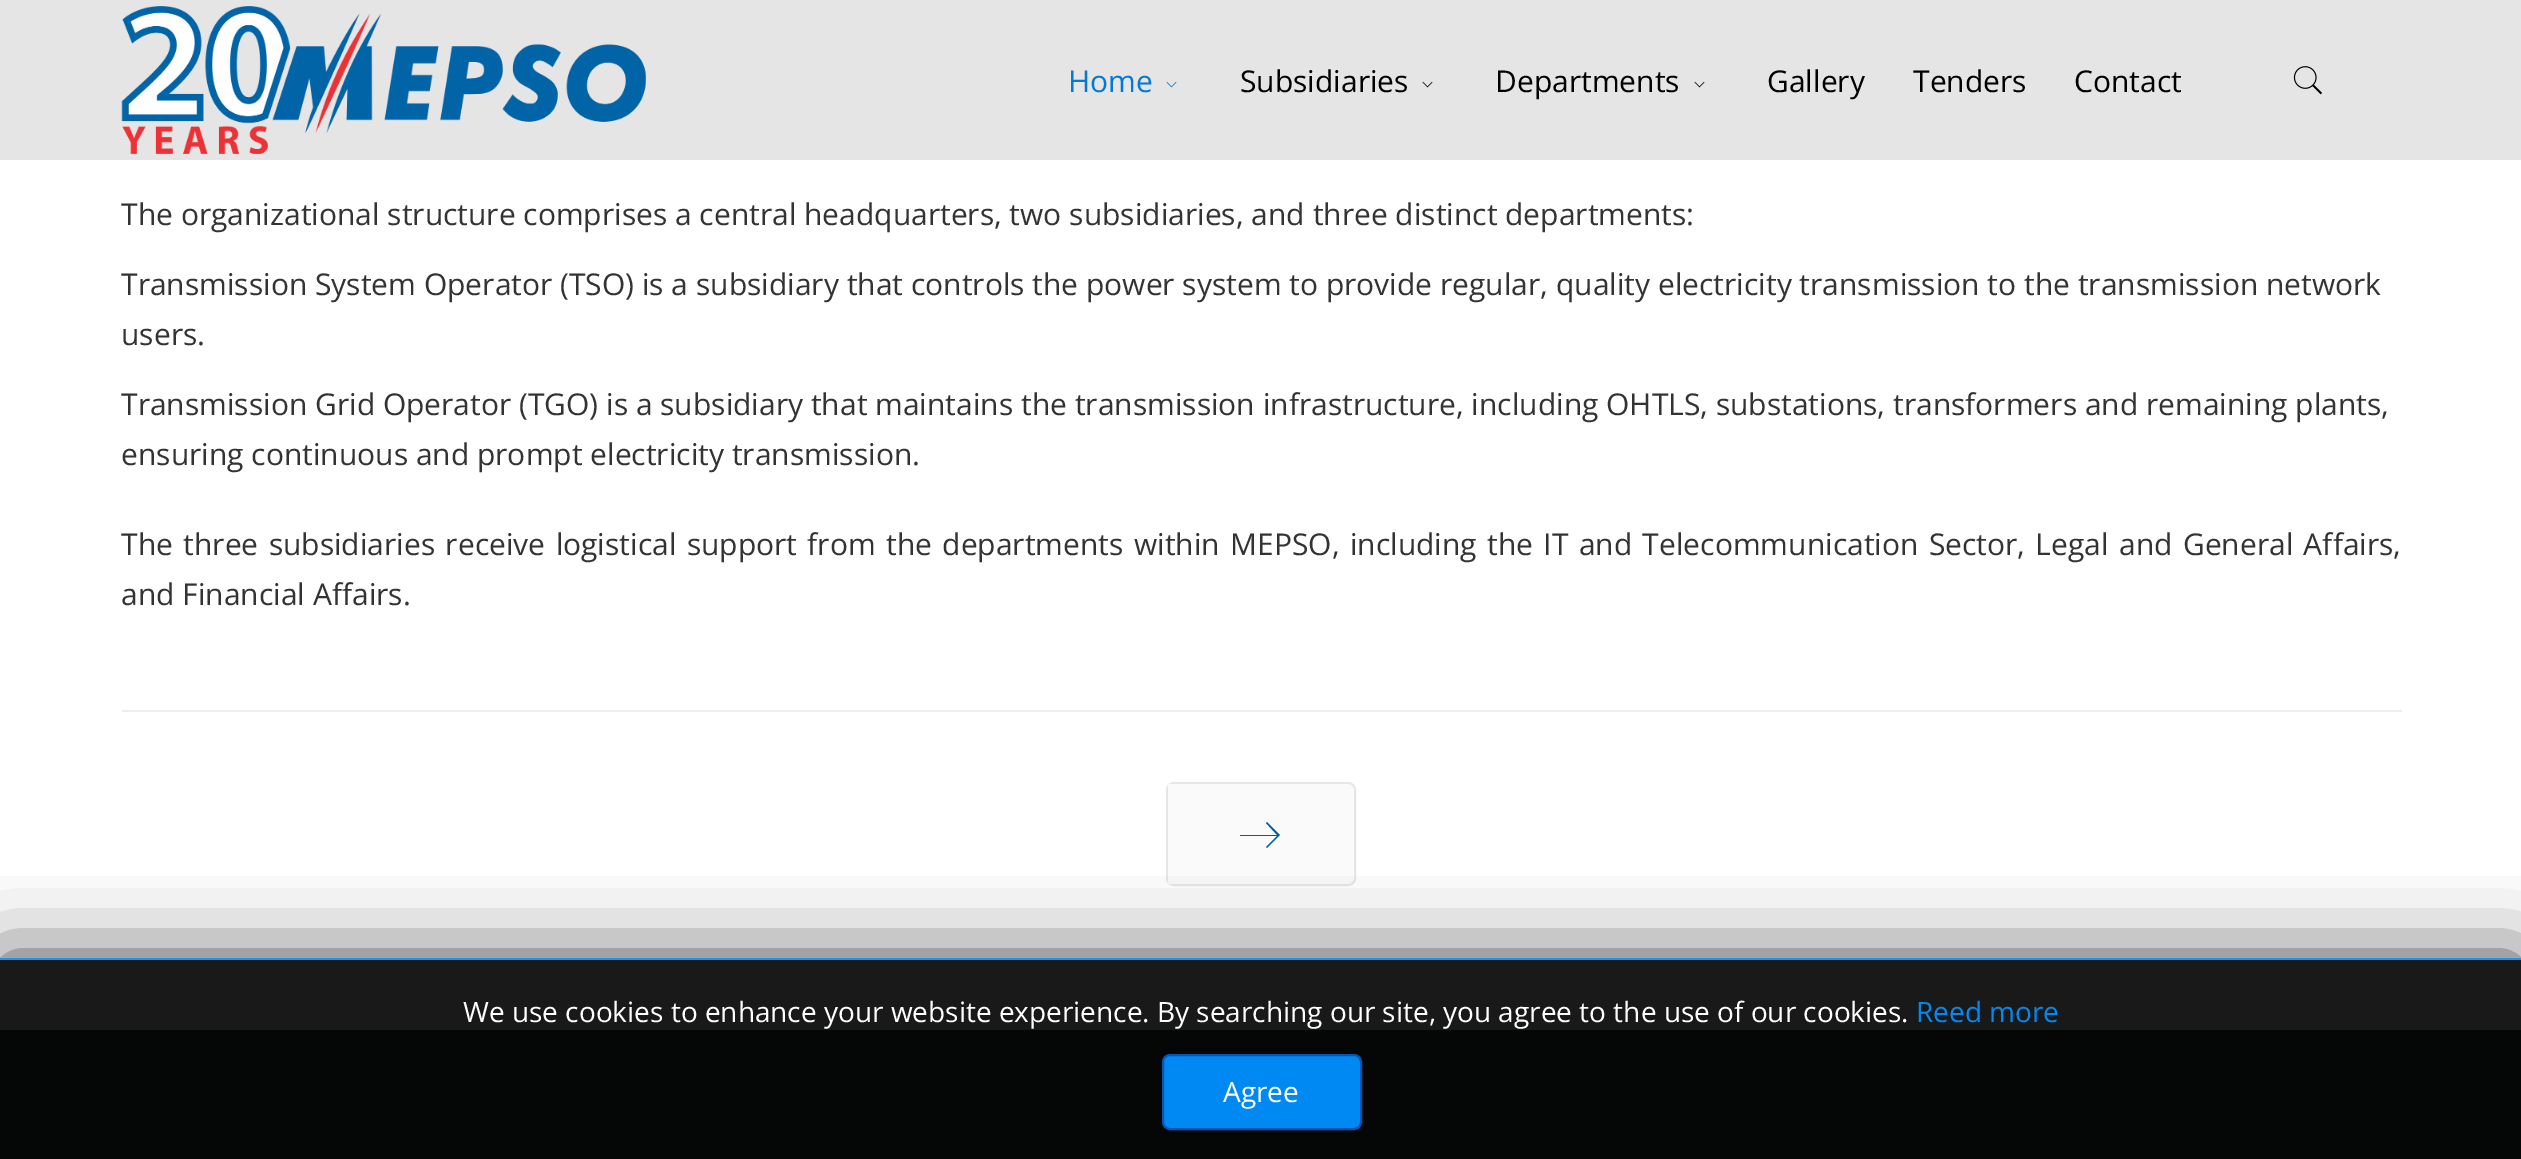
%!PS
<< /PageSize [2521 1159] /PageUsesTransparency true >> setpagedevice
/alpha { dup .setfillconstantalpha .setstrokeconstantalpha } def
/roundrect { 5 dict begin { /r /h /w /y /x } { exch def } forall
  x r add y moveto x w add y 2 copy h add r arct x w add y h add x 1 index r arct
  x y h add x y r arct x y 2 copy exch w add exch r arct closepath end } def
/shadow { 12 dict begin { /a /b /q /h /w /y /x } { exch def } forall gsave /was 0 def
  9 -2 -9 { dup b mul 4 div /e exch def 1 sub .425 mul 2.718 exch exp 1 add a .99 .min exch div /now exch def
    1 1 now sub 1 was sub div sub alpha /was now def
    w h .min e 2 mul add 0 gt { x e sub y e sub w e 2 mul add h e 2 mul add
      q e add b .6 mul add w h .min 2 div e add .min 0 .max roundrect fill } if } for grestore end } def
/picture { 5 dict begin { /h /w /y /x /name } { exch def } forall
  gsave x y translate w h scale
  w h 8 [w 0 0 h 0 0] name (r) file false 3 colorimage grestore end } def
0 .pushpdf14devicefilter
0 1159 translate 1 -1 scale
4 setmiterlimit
1 setgray
0 0 2521 1159 rectfill
0.098 setgray
0 960 2521 70 rectfill
0.898 setgray
0 0 2521 160 rectfill
(img1.rgb) 121 6 525 148 picture
/OpenSans-Regular [30 0 0 -30 0 0] selectfont
0 0.478 0.839 setrgbcolor
1068 92 moveto (Home) show
(img2.rgb) 1166 81 11 7 picture
0 setgray
1240 92 moveto (Subsidiaries) show
(img3.rgb) 1422 81 11 7 picture
1495 92 moveto (Departments) show
(img3.rgb) 1694 81 11 7 picture
1767 92 moveto (Gallery) show
1913 92 moveto (Tenders) show
2074 92 moveto (Contact) show
(img4.rgb) 2293 66 29 29 picture
0.2 setgray
121 225 moveto (The organizational structure comprises a central headquarters, two subsidiaries, and three distinct departments:) show
121 295 moveto (Transmission System Operator \(TSO\) is a subsidiary that controls the power system to provide regular, quality electricity transmission to the transmission network) show
121 345 moveto (users.) show
121 415 moveto (Transmission Grid Operator \(TGO\) is a subsidiary that maintains the transmission infrastructure, including OHTLS, substations, transformers and remaining plants,) show
121 465 moveto (ensuring continuous and prompt electricity transmission.) show
121 555 moveto 2.6 0 32 (The three subsidiaries receive logistical support from the departments within MEPSO, including the IT and Telecommunication Sector, Legal and General Affairs,) widthshow
121 605 moveto (and Financial Affairs.) show
0.933 setgray
122 710 2280 2 rectfill
0.902 setgray
2 setlinewidth
1167 783 188 102 7 roundrect stroke
0.98 setgray
newpath 1168 784 moveto 1346 784 lineto 1350.5 784 1354 787.5 1354 792 curveto 1354 876 lineto 1354 880.5 1350.5 884 1346 884 curveto 1168 884 lineto closepath fill
0 0.365 0.639 setrgbcolor
newpath 1267 822 moveto 1266 823 lineto 1277 835 lineto 1240 835 lineto 1240 836 lineto 1277 836 lineto 1266 847 lineto 1267 848 lineto 1280 835 lineto closepath fill
0.02 0.024 0.024 setrgbcolor
0 1030 2521 129 rectfill
gsave
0 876 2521 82 rectclip
0.267 setgray
0 958 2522 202 0 40 1 shadow
grestore
0.102 0.584 0.953 setrgbcolor
0 958 2521 2 rectfill
/OpenSans-Regular [28 0 0 -28 0 0] selectfont
1 setgray
463 1022 moveto (We use cookies to enhance your website experience. By searching our site, you agree to the use of our cookies.) show
0 0.537 0.949 setrgbcolor
1916 1022 moveto (Reed more) show
1163 1055 198 74 7 roundrect gsave fill grestore
0.024 0.329 0.702 setrgbcolor
stroke
1 setgray
1223 1102 moveto (Agree) show
.poppdf14devicefilter showpage
